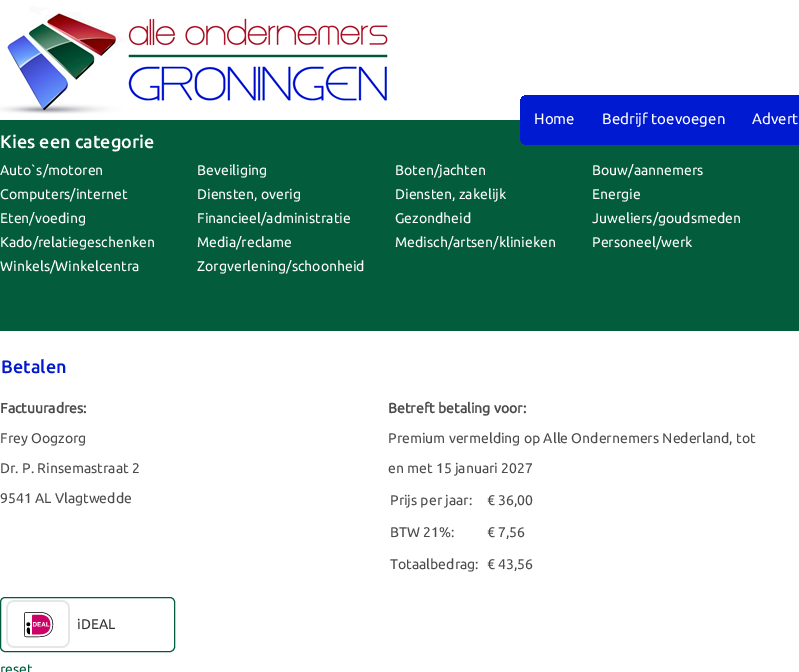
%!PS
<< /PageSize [799 672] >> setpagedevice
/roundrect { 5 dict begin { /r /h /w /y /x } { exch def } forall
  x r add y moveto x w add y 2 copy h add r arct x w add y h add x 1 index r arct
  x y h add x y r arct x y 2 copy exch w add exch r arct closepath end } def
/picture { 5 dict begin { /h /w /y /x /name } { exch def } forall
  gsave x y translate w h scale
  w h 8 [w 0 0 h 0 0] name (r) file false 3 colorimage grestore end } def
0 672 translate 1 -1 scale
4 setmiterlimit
1 setgray
0 0 799 672 rectfill
0.012 0.365 0.239 setrgbcolor
0 120 799 211 rectfill
(img1.rgb) 0 6 388 108 picture
(img2.rgb) 520 95 279 50 picture
/Ubuntu-Regular [15 0 0 -15 0 0] selectfont
1 setgray
534 124 moveto (Home) show
602 124 moveto (Bedrijf toevoegen) show
752 124 moveto (Advert) show
/Ubuntu-Medium [18 0 0 -18 0 0] selectfont
0 148 moveto (Kies een categorie) show
/Ubuntu-Regular [14 0 0 -14 0 0] selectfont
0 175 moveto (Auto`s/motoren) show
197 175 moveto (Beveiliging) show
395 175 moveto (Boten/jachten) show
592 175 moveto (Bouw/aannemers) show
0 199 moveto (Computers/internet) show
197 199 moveto (Diensten, overig) show
395 199 moveto (Diensten, zakelijk) show
592 199 moveto (Energie) show
0 223 moveto (Eten/voeding) show
197 223 moveto (Financieel/administratie) show
395 223 moveto (Gezondheid) show
592 223 moveto (Juweliers/goudsmeden) show
0 247 moveto (Kado/relatiegeschenken) show
197 247 moveto (Media/reclame) show
395 247 moveto (Medisch/artsen/klinieken) show
592 247 moveto (Personeel/werk) show
0 271 moveto (Winkels/Winkelcentra) show
197 271 moveto (Zorgverlening/schoonheid) show
/Ubuntu-Medium [18 0 0 -18 0 0] selectfont
0 0.094 0.816 setrgbcolor
1 373 moveto (Betalen) show
/Ubuntu-Bold [14 0 0 -14 0 0] selectfont
0.298 setgray
0 413 moveto (Factuuradres:) show
/Ubuntu-Regular [14 0 0 -14 0 0] selectfont
0 443 moveto (Frey Oogzorg) show
0 473 moveto (Dr. P. Rinsemastraat 2) show
0 503 moveto (9541 AL Vlagtwedde) show
/Ubuntu-Bold [14 0 0 -14 0 0] selectfont
388 413 moveto (Betreft betaling voor:) show
/Ubuntu-Regular [14 0 0 -14 0 0] selectfont
388 443 moveto (Premium vermelding op Alle Ondernemers Nederland, tot) show
388 473 moveto (en met 15 januari 2027) show
390 505 moveto (Prijs per jaar:) show
487 505 moveto (€ 36,00) show
390 537 moveto (BTW 21%:) show
487 537 moveto (€ 7,56) show
390 569 moveto (Totaalbedrag:) show
487 569 moveto (€ 43,56) show
0 0.365 0.231 setrgbcolor
0.5 597.5 174 54 4.5 roundrect stroke
(img3.rgb) 6 600 64 48 picture
0.2 setgray
77 629 moveto (iDEAL) show
0 0.365 0.231 setrgbcolor
0 674 moveto (reset) show
showpage
